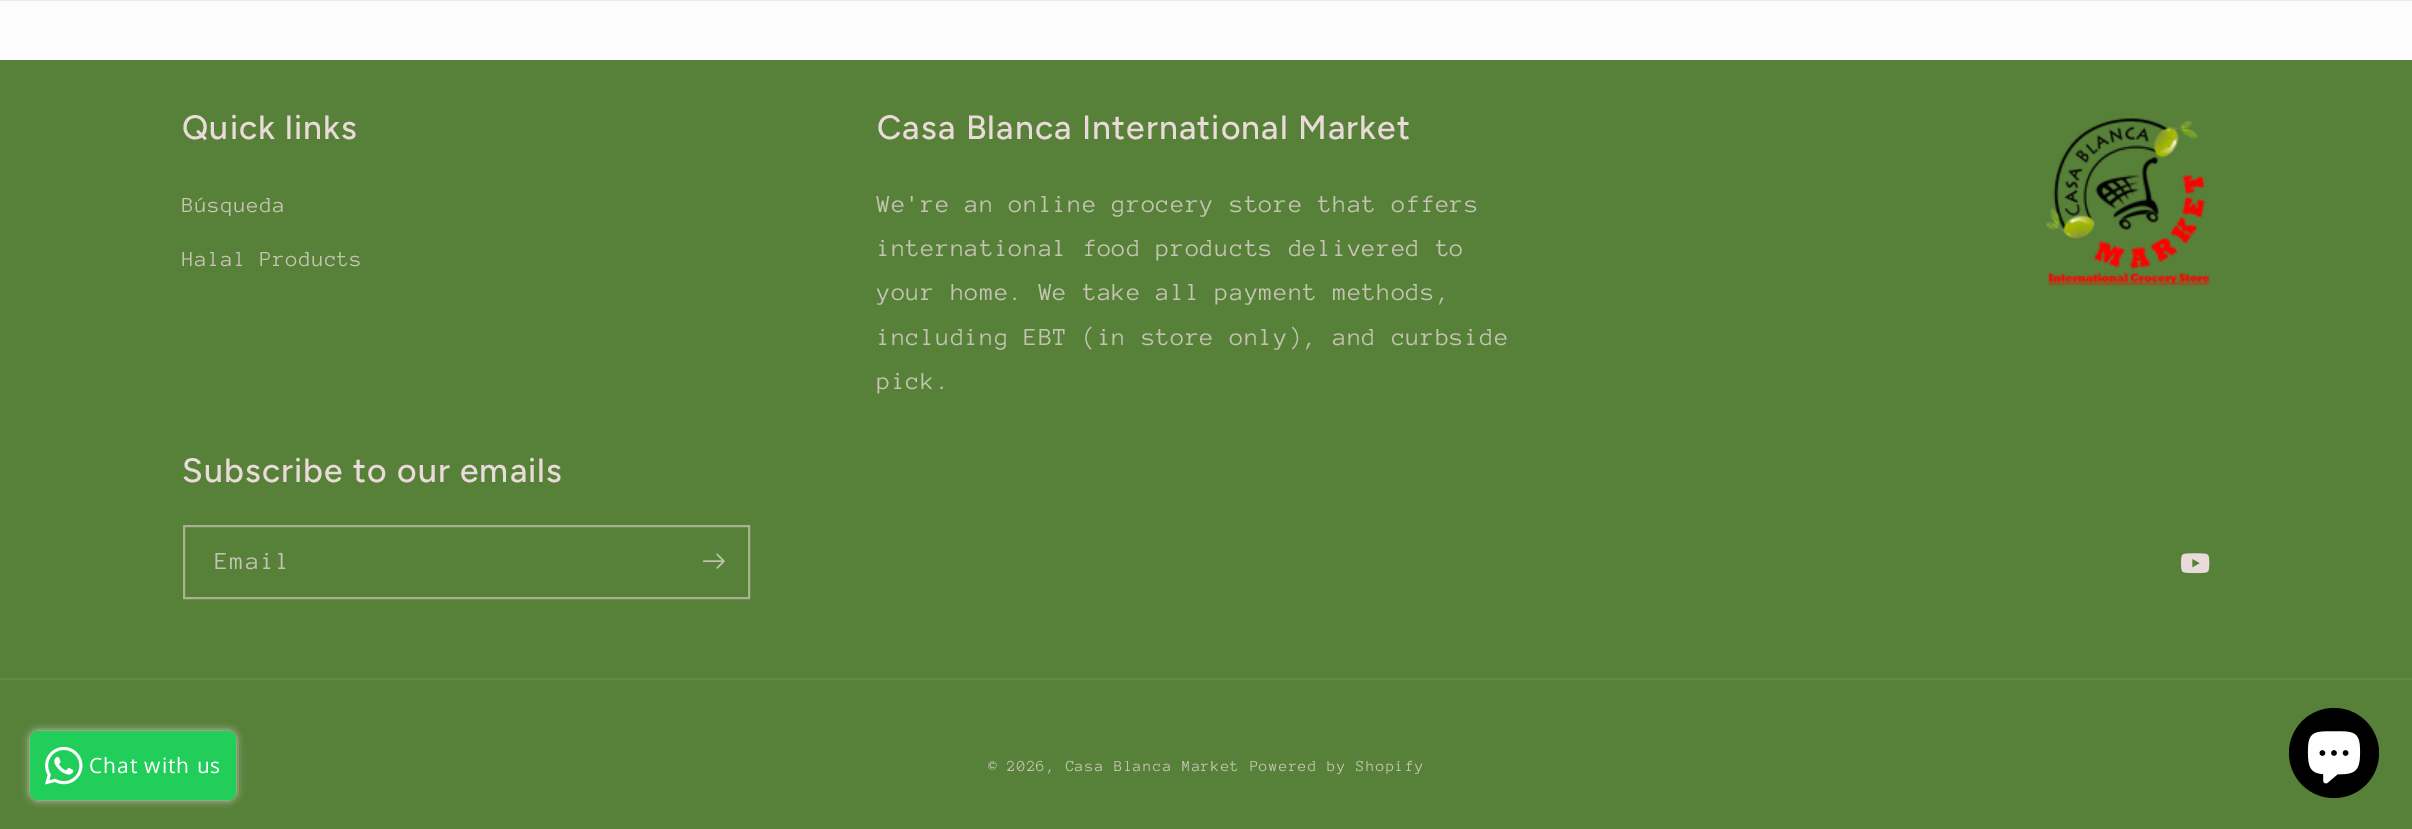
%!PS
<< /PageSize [2412 829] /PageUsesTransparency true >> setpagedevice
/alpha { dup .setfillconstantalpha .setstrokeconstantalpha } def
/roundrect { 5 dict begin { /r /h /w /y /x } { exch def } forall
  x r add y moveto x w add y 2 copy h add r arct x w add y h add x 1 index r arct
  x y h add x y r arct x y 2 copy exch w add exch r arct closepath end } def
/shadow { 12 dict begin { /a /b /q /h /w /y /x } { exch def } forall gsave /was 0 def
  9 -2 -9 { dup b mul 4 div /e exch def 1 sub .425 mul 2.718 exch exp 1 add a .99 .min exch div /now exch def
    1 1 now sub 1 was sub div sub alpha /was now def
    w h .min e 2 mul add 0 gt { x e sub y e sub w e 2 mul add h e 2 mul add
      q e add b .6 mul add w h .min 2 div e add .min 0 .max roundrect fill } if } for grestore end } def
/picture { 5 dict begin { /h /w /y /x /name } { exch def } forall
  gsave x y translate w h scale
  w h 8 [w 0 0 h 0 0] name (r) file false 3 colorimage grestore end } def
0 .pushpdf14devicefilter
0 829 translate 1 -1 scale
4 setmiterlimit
0.988 setgray
0 0 2412 829 rectfill
0.91 0.914 0.914 setrgbcolor
0 0 2412 1 rectfill
0.341 0.502 0.22 setrgbcolor
0 60 2412 769 rectfill
0.827 setgray
30 731 206 69 8 4 1 shadow
0.133 0.808 0.353 setrgbcolor
30 731 206 69 8 roundrect fill
(img1.rgb) 45 747 38 38 picture
/OpenSans-Regular [21 0 0 -21 0 0] selectfont
1 setgray
89 773 moveto 0.95 0 (Chat with us) ashow
/Figtree-Medium [33.75 0 0 -33.75 0 0] selectfont
0.918 0.855 0.855 setrgbcolor
182 139 moveto 1.1 0 (Quick links) ashow
/AnonymousPro-Regular [22 0 0 -22 0 0] selectfont
0.773 0.769 0.698 setrgbcolor
182 212 moveto 0.95 0 (Búsqueda) ashow
182 266 moveto 0.95 0 (Halal Products) ashow
/Figtree-Medium [33.75 0 0 -33.75 0 0] selectfont
0.918 0.855 0.855 setrgbcolor
877 139 moveto 1.1 0 (Casa Blanca International Market) ashow
/AnonymousPro-Regular [25.2 0 0 -25.2 0 0] selectfont
0.773 0.769 0.698 setrgbcolor
877 212 moveto 0.95 0 (We're an online grocery store that offers) ashow
877 256 moveto 0.95 0 (international food products delivered to) ashow
877 300 moveto 0.95 0 (your home. We take all payment methods,) ashow
877 345 moveto 0.95 0 (including EBT \(in store only\), and curbside) ashow
877 389 moveto 0.95 0 (pick.) ashow
(img2.rgb) 2046 118 164 168 picture
/Figtree-Medium [33.75 0 0 -33.75 0 0] selectfont
0.918 0.855 0.855 setrgbcolor
182 482 moveto 1.1 0 (Subscribe to our emails) ashow
0.659 0.698 0.569 setrgbcolor
2 setlinewidth
184 526 565 72 rectstroke
/AnonymousPro-Regular [25.2 0 0 -25.2 0 0] selectfont
0.773 0.769 0.698 setrgbcolor
215 569 moveto 1.5 0 (Email) ashow
(img3.rgb) 702 553 23 16 picture
(img4.rgb) 2181 553 29 21 picture
0.388 0.529 0.271 setrgbcolor
0 678 2412 2 rectfill
/AnonymousPro-Regular [15.75 0 0 -15.75 0 0] selectfont
0.773 0.769 0.698 setrgbcolor
988 771 moveto 1.1 0 (© 2026, Casa Blanca Market Powered by Shopify) ashow
0 setgray
newpath 2334 753 45 0 360 arc closepath fill
(img5.rgb) 2307 731 54 53 picture
.poppdf14devicefilter showpage
